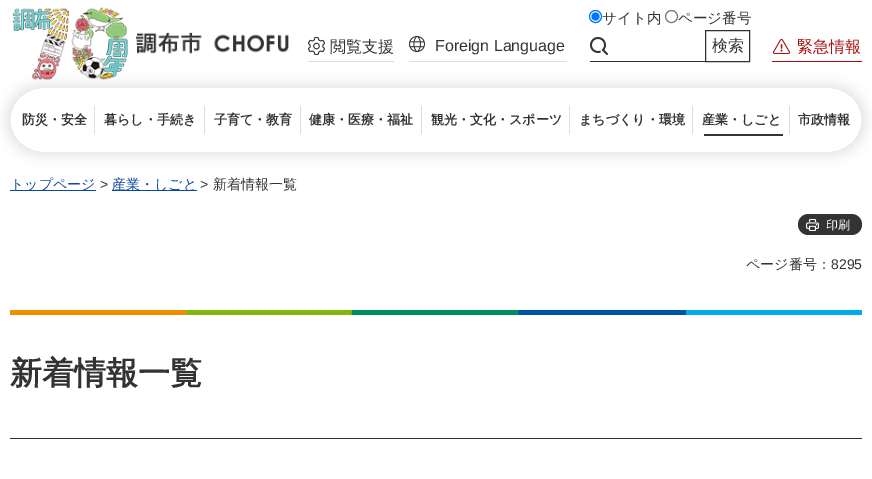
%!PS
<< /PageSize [872 479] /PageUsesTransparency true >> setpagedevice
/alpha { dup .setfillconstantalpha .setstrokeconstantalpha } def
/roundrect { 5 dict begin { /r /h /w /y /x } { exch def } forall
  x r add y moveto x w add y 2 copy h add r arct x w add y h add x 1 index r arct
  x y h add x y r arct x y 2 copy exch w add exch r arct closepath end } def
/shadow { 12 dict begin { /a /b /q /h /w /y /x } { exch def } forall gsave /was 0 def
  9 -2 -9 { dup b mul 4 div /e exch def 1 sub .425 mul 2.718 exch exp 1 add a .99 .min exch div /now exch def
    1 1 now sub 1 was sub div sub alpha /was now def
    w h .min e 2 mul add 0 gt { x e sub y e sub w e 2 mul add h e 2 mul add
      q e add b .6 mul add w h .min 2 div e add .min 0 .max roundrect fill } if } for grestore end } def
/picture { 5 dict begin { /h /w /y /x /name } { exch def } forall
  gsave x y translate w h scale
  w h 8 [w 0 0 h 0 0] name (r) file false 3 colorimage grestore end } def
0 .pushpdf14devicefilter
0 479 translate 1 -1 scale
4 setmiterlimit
1 setgray
0 0 872 479 rectfill
(img1.rgb) 12 7 277 73 picture
0.867 setgray
308 61 86 1 rectfill
(img2.rgb) 308 37 17 18 picture
/WenQuanYiZenHei-Medium [16 0 0 -16 0 0] selectfont
0.2 setgray
330 52 moveto (閲覧支援) show
0.867 setgray
409 61 158 1 rectfill
(img3.rgb) 409 36 16 16 picture
/LiberationSans-Regular [16 0 0 -16 0 0] selectfont
0.2 setgray
435 51 moveto (Foreign Language) show
0 0.459 1 setrgbcolor
newpath 595.5 16.5 6 0 360 arc closepath stroke
newpath 595.5 16.5 4 0 360 arc closepath fill
/WenQuanYiZenHei-Medium [14.5 0 0 -14.5 0 0] selectfont
0.2 setgray
602 23 moveto (サイト内) show
0.463 setgray
newpath 671.5 16.5 6 0 360 arc closepath stroke
0.2 setgray
678 23 moveto (ページ番号) show
(img4.rgb) 590 37 18 18 picture
590 61 115 1 rectfill
705.5 30.5 44 31 rectstroke
/WenQuanYiZenHei-Medium [16 0 0 -16 0 0] selectfont
712 51 moveto (検索) show
(img5.rgb) 773 39 17 15 picture
0.671 0.043 0.043 setrgbcolor
797 52 moveto (緊急情報) show
772 61 90 1 rectfill
gsave
newpath 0 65 moveto 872 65 lineto 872 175 lineto 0 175 lineto closepath 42 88 moveto 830 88 lineto 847.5 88 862 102.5 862 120 curveto 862 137.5 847.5 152 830 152 curveto 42 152 lineto 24.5 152 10 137.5 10 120 curveto 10 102.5 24.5 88 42 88 curveto closepath eoclip newpath
0 setgray
6 84 860 72 36 6 0.1 shadow
grestore
/WenQuanYiZenHei-Bold [13 0 0 -13 0 0] selectfont
0.2 setgray
22 124 moveto (防災・安全) show
0.867 setgray
94 106 1 28 rectfill
0.2 setgray
104 124 moveto (暮らし・手続き) show
0.867 setgray
204 106 1 28 rectfill
0.2 setgray
214 124 moveto (子育て・教育) show
0.867 setgray
300 106 1 28 rectfill
0.2 setgray
309 124 moveto (健康・医療・福祉) show
0.867 setgray
421 106 1 28 rectfill
0.2 setgray
431 124 moveto (観光・文化・スポーツ) show
0.867 setgray
569 106 1 28 rectfill
0.2 setgray
579 124 moveto (まちづくり・環境) show
0.867 setgray
692 106 1 28 rectfill
0.2 setgray
702 124 moveto (産業・しごと) show
704 134 79 2 rectfill
0.867 setgray
789 106 1 28 rectfill
0.2 setgray
798 124 moveto (市政情報) show
0.043 0.278 0.631 setrgbcolor
10 190 86 1 rectfill
/WenQuanYiZenHei-Medium [14 0 0 -14 0 0] selectfont
10 189 moveto (トップページ) show
/LiberationSans-Regular [14 0 0 -14 0 0] selectfont
0.2 setgray
100 189 moveto (>) show
0.043 0.278 0.631 setrgbcolor
112 190 85 1 rectfill
/WenQuanYiZenHei-Medium [14 0 0 -14 0 0] selectfont
112 189 moveto (産業・しごと) show
/LiberationSans-Regular [14 0 0 -14 0 0] selectfont
0.2 setgray
200 189 moveto (>) show
/WenQuanYiZenHei-Medium [14 0 0 -14 0 0] selectfont
213 189 moveto (新着情報一覧) show
798 214 64 21 10.5 roundrect fill
(img6.rgb) 806 219 13 12 picture
/WenQuanYiZenHei-Medium [12 0 0 -12 0 0] selectfont
1 setgray
826 229 moveto (印刷) show
/WenQuanYiZenHei-Medium [14 0 0 -14 0 0] selectfont
0.2 setgray
746 269 moveto (ページ番号：) show
/LiberationSans-Regular [14 0 0 -14 0 0] selectfont
831 269 moveto (8295) show
(img7.rgb) 10 310 852 5 picture
10 438 852 1 rectfill
/WenQuanYiZenHei-Bold [32 0 0 -32 0 0] selectfont
10 384 moveto (新着情報一覧) show
.poppdf14devicefilter showpage
